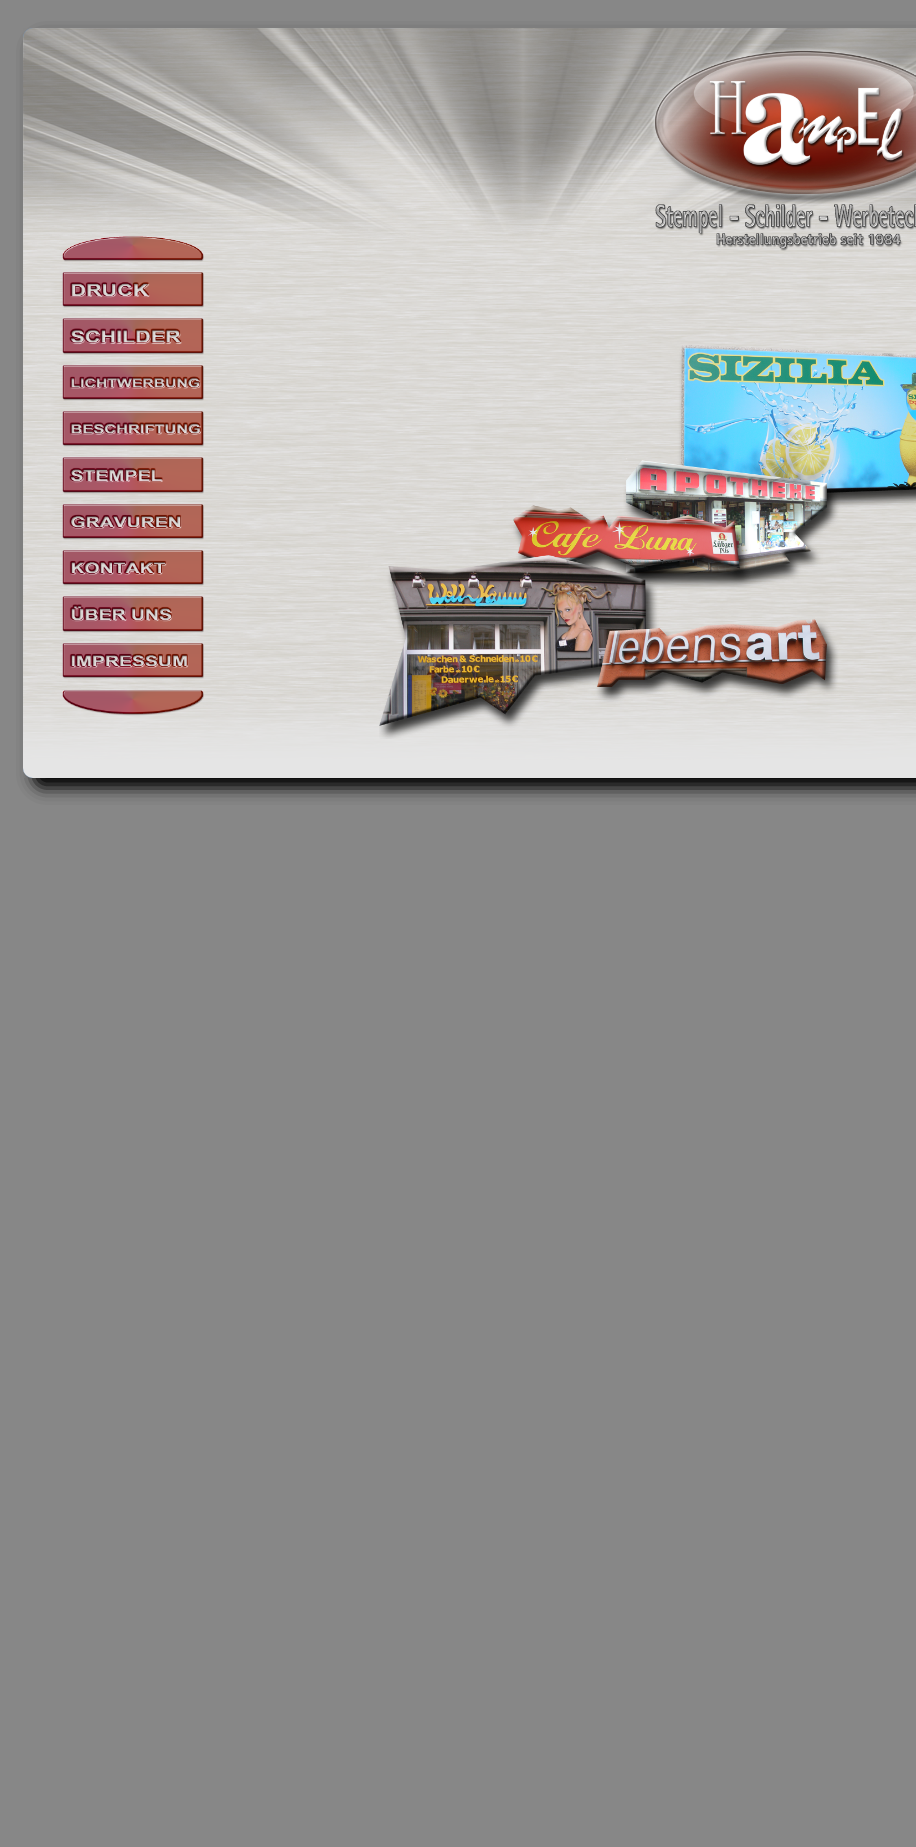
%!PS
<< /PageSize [916 1847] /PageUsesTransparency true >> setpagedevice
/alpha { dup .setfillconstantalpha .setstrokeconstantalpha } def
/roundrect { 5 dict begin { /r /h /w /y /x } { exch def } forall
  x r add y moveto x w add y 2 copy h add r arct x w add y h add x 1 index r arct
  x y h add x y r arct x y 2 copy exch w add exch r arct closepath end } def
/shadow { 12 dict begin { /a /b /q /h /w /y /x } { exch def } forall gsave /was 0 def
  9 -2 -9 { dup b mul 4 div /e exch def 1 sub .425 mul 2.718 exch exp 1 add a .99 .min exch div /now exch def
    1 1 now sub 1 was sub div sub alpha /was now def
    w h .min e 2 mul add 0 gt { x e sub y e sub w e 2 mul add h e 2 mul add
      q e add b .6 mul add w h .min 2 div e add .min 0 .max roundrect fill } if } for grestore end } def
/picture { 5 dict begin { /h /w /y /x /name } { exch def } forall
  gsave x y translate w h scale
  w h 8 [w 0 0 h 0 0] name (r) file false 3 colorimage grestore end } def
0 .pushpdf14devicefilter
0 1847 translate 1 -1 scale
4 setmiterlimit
0.529 setgray
0 0 916 1847 rectfill
0 setgray
33 38 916 750 10 7.5 1 shadow
0.439 0.573 0.718 setrgbcolor
23 28 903 750 10 roundrect fill
(img1.rgb) 23 28 893 750 picture
(img2.rgb) 651 47 265 204 picture
(img3.rgb) 62 236 142 26 picture
(img4.rgb) 62 271 142 37 picture
(img5.rgb) 62 317 142 38 picture
(img6.rgb) 62 364 142 37 picture
(img7.rgb) 62 410 142 37 picture
(img8.rgb) 62 456 142 38 picture
(img9.rgb) 62 503 142 37 picture
(img10.rgb) 62 549 142 37 picture
(img11.rgb) 62 595 142 38 picture
(img12.rgb) 62 642 142 37 picture
(img13.rgb) 62 690 142 26 picture
(img14.rgb) 379 345 537 394 picture
.poppdf14devicefilter showpage
